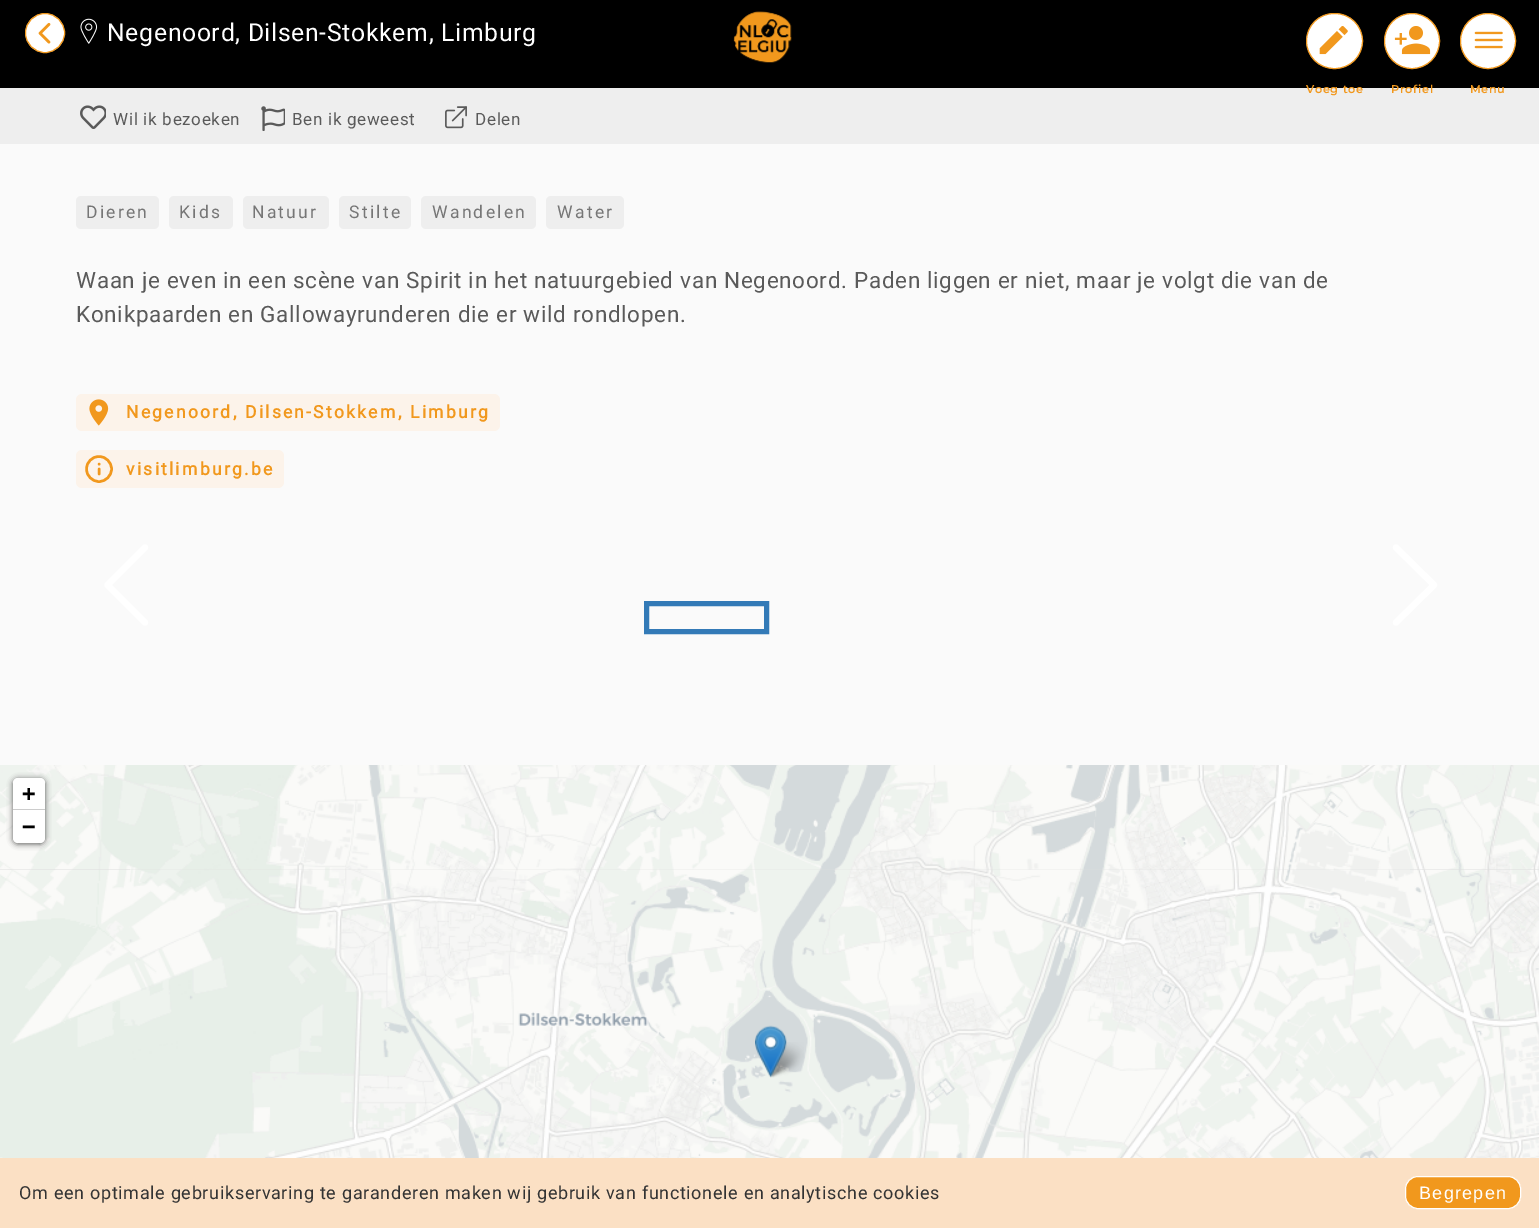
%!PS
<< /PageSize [1539 1228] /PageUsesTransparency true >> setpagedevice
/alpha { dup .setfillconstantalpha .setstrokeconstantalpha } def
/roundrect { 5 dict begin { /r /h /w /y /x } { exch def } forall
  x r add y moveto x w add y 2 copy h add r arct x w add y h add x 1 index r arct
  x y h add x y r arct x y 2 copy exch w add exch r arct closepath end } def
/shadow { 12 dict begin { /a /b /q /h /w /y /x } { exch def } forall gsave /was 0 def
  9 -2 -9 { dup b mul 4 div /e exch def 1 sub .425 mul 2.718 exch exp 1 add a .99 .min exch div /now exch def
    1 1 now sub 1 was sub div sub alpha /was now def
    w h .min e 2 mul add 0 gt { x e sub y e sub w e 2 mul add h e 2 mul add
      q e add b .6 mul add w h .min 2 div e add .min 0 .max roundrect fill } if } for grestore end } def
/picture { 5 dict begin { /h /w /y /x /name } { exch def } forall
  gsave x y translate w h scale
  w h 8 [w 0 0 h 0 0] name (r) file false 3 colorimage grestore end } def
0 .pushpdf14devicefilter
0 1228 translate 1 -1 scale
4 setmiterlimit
0.98 setgray
0 0 1539 1228 rectfill
0 setgray
0 0 1539 88 rectfill
1 setgray
newpath 45 33 19.5 0 360 arc closepath gsave fill grestore
0.945 0.596 0.114 setrgbcolor
stroke
(img1.rgb) 38 22 13 22 picture
(img2.rgb) 733 11 59 52 picture
(img3.rgb) 80 18 18 26 picture
/Roboto-Regular [24.75 0 0 -24.75 0 0] selectfont
1 setgray
107 41 moveto 0.68 0 (Negenoord, Dilsen-Stokkem, Limburg) ashow
0.933 setgray
0 88 1539 56 rectfill
(img4.rgb) 80 105 26 24 picture
/Roboto-Regular [17 0 0 -17 0 0] selectfont
0.353 setgray
113 125 moveto 0.68 0 (Wil ik bezoeken) ashow
(img5.rgb) 261 106 24 25 picture
292 125 moveto 0.68 0 (Ben ik geweest) ashow
(img6.rgb) 445 106 22 23 picture
475 125 moveto 0.68 0 (Delen) ashow
0.933 setgray
76 196 83 33 5 roundrect fill
/Roboto-Regular [17.5 0 0 -17.5 0 0] selectfont
0.463 setgray
86 218 moveto 2.25 0 (Dieren) ashow
0.933 setgray
169 196 64 33 5 roundrect fill
0.463 setgray
179 218 moveto 2.25 0 (Kids) ashow
0.933 setgray
243 196 86 33 5 roundrect fill
0.463 setgray
252 218 moveto 2.25 0 (Natuur) ashow
0.933 setgray
339 196 72 33 5 roundrect fill
0.463 setgray
349 218 moveto 2.25 0 (Stilte) ashow
0.933 setgray
421 196 115 33 5 roundrect fill
0.463 setgray
432 218 moveto 2.25 0 (Wandelen) ashow
0.933 setgray
546 196 78 33 5 roundrect fill
0.463 setgray
557 218 moveto 2.25 0 (Water) ashow
/Roboto-Regular [22.5 0 0 -22.5 0 0] selectfont
0.353 setgray
76 288 moveto 0.68 0 (Waan je even in een scène van Spirit in het natuurgebied van Negenoord. Paden liggen er niet, maar je volgt die van de) ashow
76 322 moveto 0.68 0 (Konikpaarden en Gallowayrunderen die er wild rondlopen.) ashow
0.988 0.953 0.918 setrgbcolor
76 394 424 37 6 roundrect fill
(img7.rgb) 89 399 20 27 picture
/Roboto-Bold [17.5 0 0 -17.5 0 0] selectfont
0.945 0.596 0.114 setrgbcolor
126 418 moveto 2.25 0 (Negenoord, Dilsen-Stokkem, Limburg) ashow
0.988 0.953 0.918 setrgbcolor
76 450 208 38 6 roundrect fill
0.945 0.596 0.114 setrgbcolor
2.5 setlinewidth
newpath 99 469 12.5 0 360 arc closepath stroke
1 setlinecap
1 setlinejoin
newpath 99 474 moveto 99 469 lineto 99 464 moveto 99 464 lineto stroke
126 475 moveto 2.25 0 (visitlimburg.be) ashow
1 setgray
6.2 setlinewidth
newpath 145 622.5 moveto 107.5 585 lineto 145 547.5 lineto stroke
newpath 1396 622.5 moveto 1434 585 lineto 1396 547.5 lineto stroke
0.2 0.478 0.718 setrgbcolor
5 setlinewidth
0 setlinecap
0 setlinejoin
646.5 603.5 120 28 rectstroke
0.867 setgray
0 869 1539 1 rectfill
(img8.rgb) 0 765 130 105 picture
(img15.rgb) 130 869 320 289 picture
(img9.rgb) 130 765 320 105 picture
(img16.rgb) 450 869 320 289 picture
(img10.rgb) 450 765 320 105 picture
(img17.rgb) 770 869 320 289 picture
(img11.rgb) 770 765 320 105 picture
(img18.rgb) 1090 869 320 289 picture
(img12.rgb) 1090 765 320 105 picture
(img13.rgb) 1410 765 129 105 picture
(img14.rgb) 0 870 130 288 picture
(img19.rgb) 1410 870 129 288 picture
(img21.rgb) 766 1042 38 36 picture
(img20.rgb) 755 1025 32 53 picture
0 setgray
13 779 32 65 5 3 0.65 shadow
1 setgray
newpath 18 778 moveto 40 778 lineto 43 778 45 780 45 783 curveto 45 810 lineto 13 810 lineto 13 783 lineto 13 780 15 778 18 778 curveto closepath fill
0.8 setgray
13 809 32 1 rectfill
/DejaVuSansMono-Bold [22.5 0 0 -22.5 0 0] selectfont
0 setgray
22 801 moveto 0.68 0 (+) ashow
1 setgray
newpath 13 810 moveto 45 810 lineto 45 838 lineto 45 841 43 843 40 843 curveto 18 843 lineto 15 843 13 841 13 838 curveto closepath fill
0 setgray
22 834 moveto 0.68 0 (−) ashow
1 setgray
1306.5 13.5 56 55 27.5 roundrect gsave fill grestore
0.945 0.596 0.114 setrgbcolor
1 setlinewidth
stroke
(img22.rgb) 1319 26 29 29 picture
/Montserrat-SemiBold [11.25 0 0 -11.25 0 0] selectfont
1306 93 moveto 0.68 0 (Voeg toe) ashow
1 setgray
newpath 1412 41 27.5 0 360 arc closepath gsave fill grestore
0.945 0.596 0.114 setrgbcolor
stroke
(img23.rgb) 1394 26 37 29 picture
1391 93 moveto 0.68 0 (Profiel) ashow
1 setgray
newpath 1488 41 27.5 0 360 arc closepath gsave fill grestore
0.945 0.596 0.114 setrgbcolor
stroke
(img24.rgb) 1474 31 29 18 picture
1470 93 moveto 0.68 0 (Menu) ashow
0.984 0.878 0.769 setrgbcolor
0 1158 1539 70 rectfill
/Roboto-Regular [18 0 0 -18 0 0] selectfont
0.2 setgray
19 1199 moveto 0.68 0 (Om een optimale gebruikservaring te garanderen maken wij gebruik van functionele en analytische cookies) ashow
0.945 0.596 0.114 setrgbcolor
1405.5 1176.5 115 32 12.5 roundrect gsave fill grestore
1 setgray
stroke
/LiberationSans-Regular [18 0 0 -18 0 0] selectfont
1419 1199 moveto 1.25 0 (Begrepen) ashow
.poppdf14devicefilter showpage
